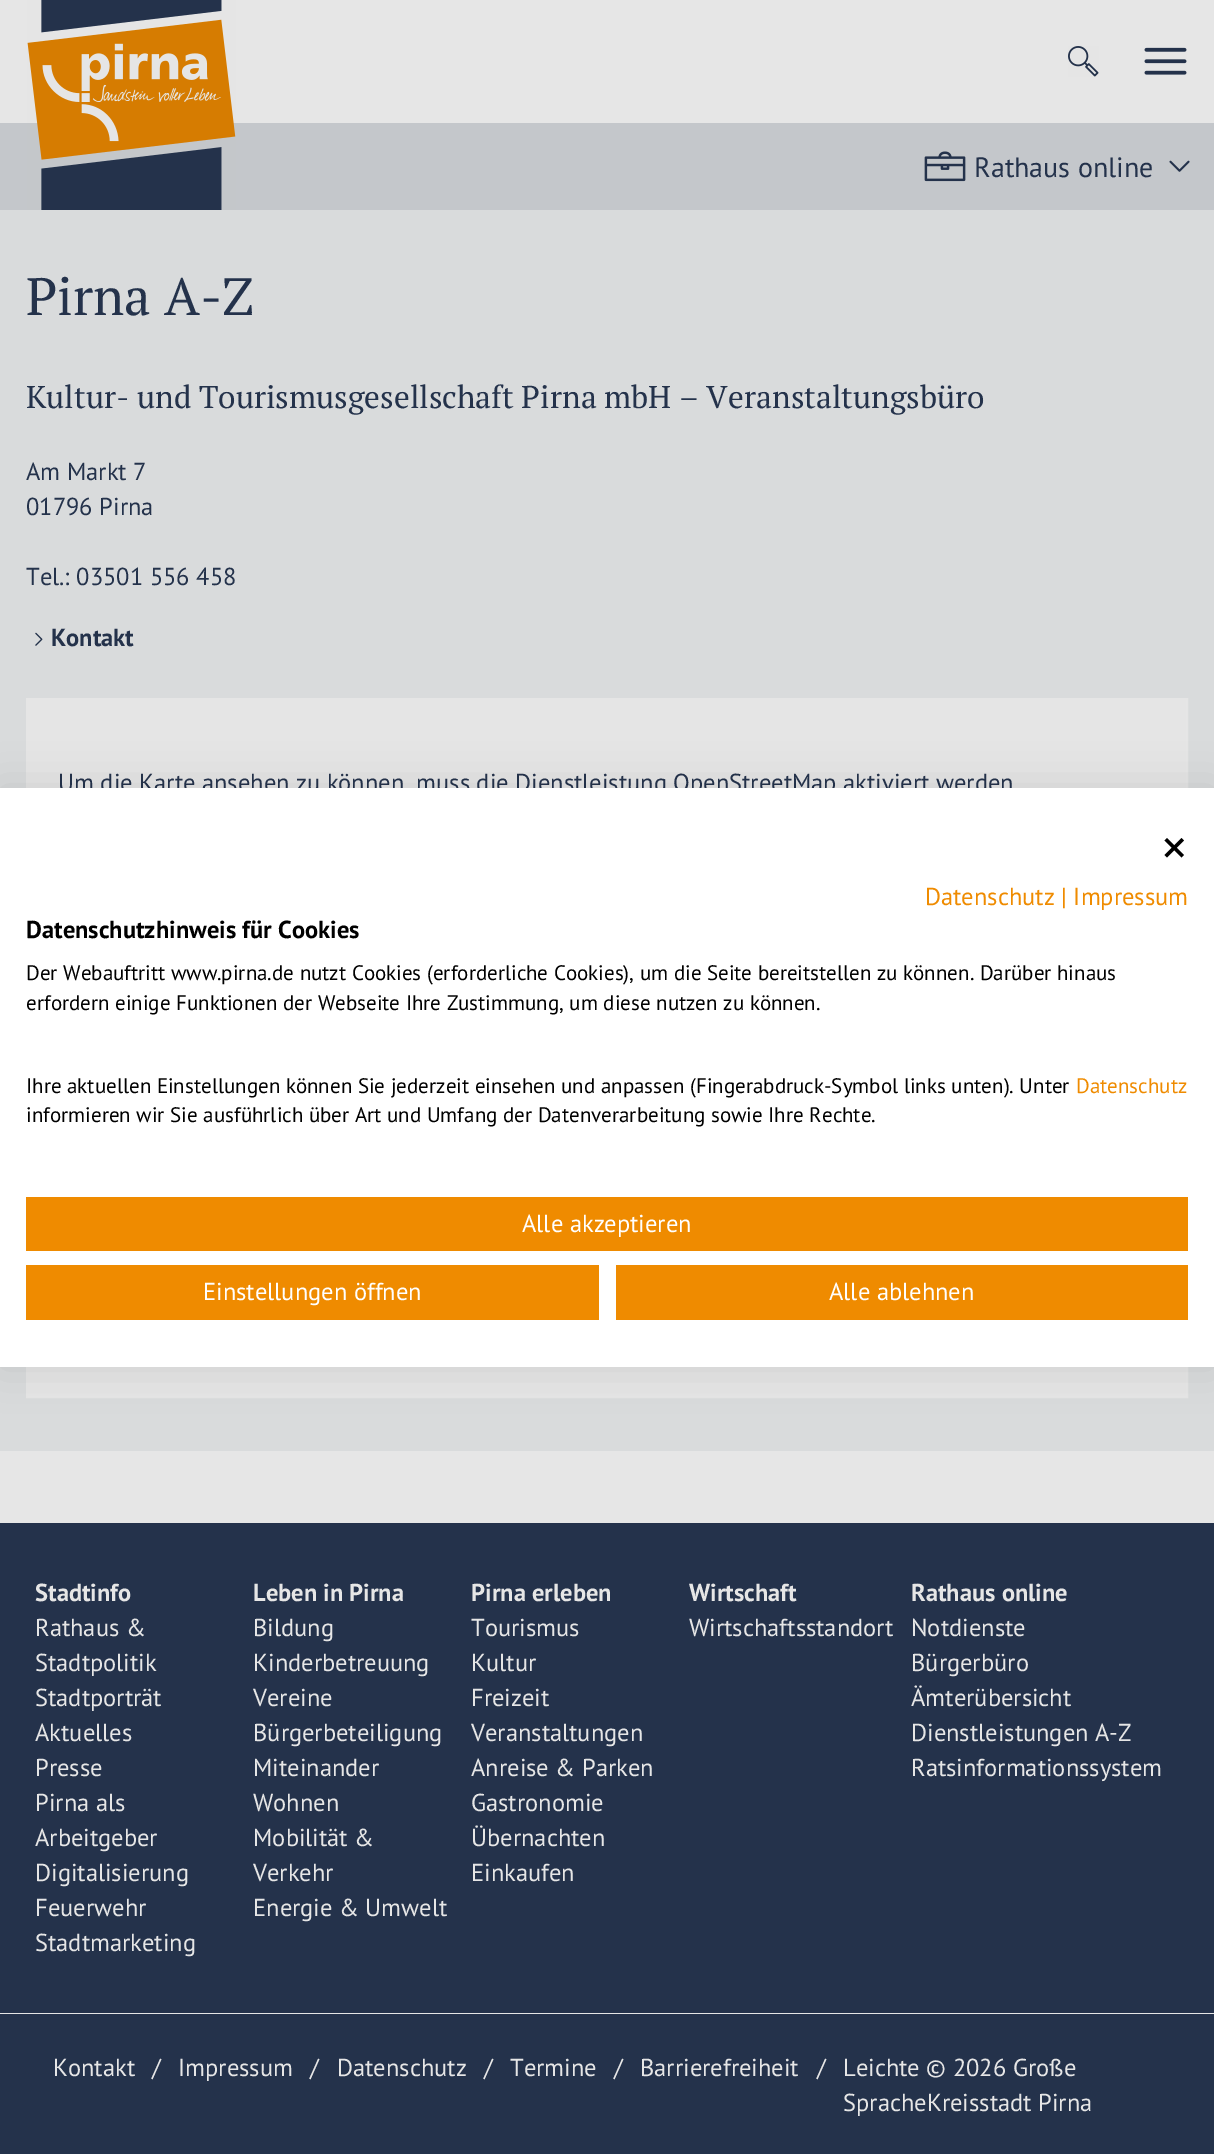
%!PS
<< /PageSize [1214 2154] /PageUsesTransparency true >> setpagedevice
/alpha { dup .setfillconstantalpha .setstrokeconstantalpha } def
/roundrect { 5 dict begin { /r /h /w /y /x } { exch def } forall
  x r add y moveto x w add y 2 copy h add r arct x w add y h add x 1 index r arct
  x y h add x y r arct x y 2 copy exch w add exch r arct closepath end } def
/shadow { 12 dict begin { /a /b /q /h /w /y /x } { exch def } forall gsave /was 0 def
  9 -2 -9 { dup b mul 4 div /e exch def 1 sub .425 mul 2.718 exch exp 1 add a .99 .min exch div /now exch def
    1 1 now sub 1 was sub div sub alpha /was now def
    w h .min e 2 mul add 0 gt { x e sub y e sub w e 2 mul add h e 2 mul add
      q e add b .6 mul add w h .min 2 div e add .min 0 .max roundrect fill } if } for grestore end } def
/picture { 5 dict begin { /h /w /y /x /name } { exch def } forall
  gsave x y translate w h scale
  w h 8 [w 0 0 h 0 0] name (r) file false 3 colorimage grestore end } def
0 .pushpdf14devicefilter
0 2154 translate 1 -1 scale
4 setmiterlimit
0.902 setgray
0 0 1214 2154 rectfill
0.769 0.78 0.796 setrgbcolor
0 123 1214 87 rectfill
(img1.rgb) 27 0 209 210 picture
(img2.rgb) 1068 46 31 31 picture
(img3.rgb) 1144 47 43 28 picture
(img4.rgb) 924 151 42 31 picture
/PTSans-Regular [28 0 0 -28 0 0] selectfont
0.141 0.196 0.294 setrgbcolor
974 177 moveto (Rathaus online) show
(img5.rgb) 1169 160 21 12 picture
0.851 0.859 0.863 setrgbcolor
0 210 1214 1241 rectfill
/PTSerif-Regular [52.5 0 0 -52.5 0 0] selectfont
0.141 0.196 0.294 setrgbcolor
26 315 moveto (Pirna A-Z) show
/PTSerif-Regular [31.5 0 0 -31.5 0 0] selectfont
26 408 moveto (Kultur- und Tourismusgesellschaft Pirna mbH – Veranstaltungsbüro) show
/PTSans-Regular [24.5 0 0 -24.5 0 0] selectfont
26 480 moveto (Am Markt 7) show
26 515 moveto (01796 Pirna) show
26 585 moveto (Tel.: 03501 556 458) show
(img6.rgb) 35 632 8 14 picture
/PTSans-Bold [24.5 0 0 -24.5 0 0] selectfont
51 646 moveto (Kontakt) show
0.898 setgray
2 setlinewidth
27 699 1160 698 rectstroke
0.9 alpha
0.902 setgray
29 701 1157 695 rectstroke
1 alpha
0.898 setgray
31 703 1153 691 rectstroke
32 704 1151 689 rectfill
/PTSans-Regular [24.5 0 0 -24.5 0 0] selectfont
0.141 0.196 0.294 setrgbcolor
58 791 moveto (Um die Karte ansehen zu können, muss die Dienstleistung OpenStreetMap aktiviert werden) show
0 1523 1214 490 rectfill
/PTSans-Bold [24.5 0 0 -24.5 0 0] selectfont
0.902 setgray
35 1601 moveto (Stadtinfo) show
/PTSans-Regular [24.5 0 0 -24.5 0 0] selectfont
35 1636 moveto (Rathaus &) show
35 1671 moveto (Stadtpolitik) show
35 1706 moveto (Stadtporträt) show
35 1741 moveto (Aktuelles) show
35 1776 moveto (Presse) show
35 1811 moveto (Pirna als) show
35 1846 moveto (Arbeitgeber) show
35 1881 moveto (Digitalisierung) show
35 1916 moveto (Feuerwehr) show
35 1951 moveto (Stadtmarketing) show
/PTSans-Bold [24.5 0 0 -24.5 0 0] selectfont
253 1601 moveto (Leben in Pirna) show
/PTSans-Regular [24.5 0 0 -24.5 0 0] selectfont
253 1636 moveto (Bildung) show
253 1671 moveto (Kinderbetreuung) show
253 1706 moveto (Vereine) show
253 1741 moveto (Bürgerbeteiligung) show
253 1776 moveto (Miteinander) show
253 1811 moveto (Wohnen) show
253 1846 moveto (Mobilität &) show
253 1881 moveto (Verkehr) show
253 1916 moveto (Energie & Umwelt) show
/PTSans-Bold [24.5 0 0 -24.5 0 0] selectfont
471 1601 moveto (Pirna erleben) show
/PTSans-Regular [24.5 0 0 -24.5 0 0] selectfont
471 1636 moveto (Tourismus) show
471 1671 moveto (Kultur) show
471 1706 moveto (Freizeit) show
471 1741 moveto (Veranstaltungen) show
471 1776 moveto (Anreise & Parken) show
471 1811 moveto (Gastronomie) show
471 1846 moveto (Übernachten) show
471 1881 moveto (Einkaufen) show
/PTSans-Bold [24.5 0 0 -24.5 0 0] selectfont
689 1601 moveto (Wirtschaft) show
/PTSans-Regular [24.5 0 0 -24.5 0 0] selectfont
689 1636 moveto (Wirtschaftsstandort) show
/PTSans-Bold [24.5 0 0 -24.5 0 0] selectfont
911 1601 moveto (Rathaus online) show
/PTSans-Regular [24.5 0 0 -24.5 0 0] selectfont
911 1636 moveto (Notdienste) show
911 1671 moveto (Bürgerbüro) show
911 1706 moveto (Ämterübersicht) show
911 1741 moveto (Dienstleistungen A-Z) show
911 1776 moveto (Ratsinformationssystem) show
0.141 0.196 0.294 setrgbcolor
0 2014 1214 140 rectfill
0.902 setgray
53 2076 moveto (Kontakt) show
152 2076 moveto (/) show
178 2076 moveto (Impressum) show
310 2076 moveto (/) show
337 2076 moveto (Datenschutz) show
484 2076 moveto (/) show
510 2076 moveto (Termine) show
614 2076 moveto (/) show
640 2076 moveto (Barrierefreiheit) show
817 2076 moveto (/) show
843 2076 moveto (Leichte © 2026 Große) show
843 2111 moveto (SpracheKreisstadt Pirna) show
0 setgray
0 788 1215 579 0 21 0.1 shadow
1 setgray
0 788 1214 579 rectfill
0 setgray
newpath 1181.5 838 moveto 1184 840.5 lineto 1167 857.5 lineto 1164.5 855 lineto closepath fill
newpath 1164.5 840.5 moveto 1167 838 lineto 1184 855 lineto 1181.5 857.5 lineto closepath fill
0.937 0.545 0 setrgbcolor
925 905 moveto (Datenschutz | Impressum) show
/PTSans-Bold [24.5 0 0 -24.5 0 0] selectfont
0 setgray
26 938 moveto (Datenschutzhinweis für Cookies) show
/PTSans-Regular [21 0 0 -21 0 0] selectfont
26 980 moveto (Der Webauftritt www.pirna.de nutzt Cookies \(erforderliche Cookies\), um die Seite bereitstellen zu können. Darüber hinaus) show
26 1010 moveto (erfordern einige Funktionen der Webseite Ihre Zustimmung, um diese nutzen zu können.) show
26 1093 moveto (Ihre aktuellen Einstellungen können Sie jederzeit einsehen und anpassen \(Fingerabdruck-Symbol links unten\). Unter) show
0.937 0.545 0 setrgbcolor
1076 1093 moveto (Datenschutz) show
0 setgray
26 1122 moveto (informieren wir Sie ausführlich über Art und Umfang der Datenverarbeitung sowie Ihre Rechte.) show
0.937 0.545 0 setrgbcolor
26 1197 1162 54 rectfill
/PTSans-Regular [24.5 0 0 -24.5 0 0] selectfont
1 setgray
522 1232 moveto (Alle akzeptieren) show
0.937 0.545 0 setrgbcolor
26 1265 573 55 rectfill
1 setgray
203 1300 moveto (Einstellungen öffnen) show
0.937 0.545 0 setrgbcolor
616 1265 572 55 rectfill
1 setgray
829 1300 moveto (Alle ablehnen) show
.poppdf14devicefilter showpage
